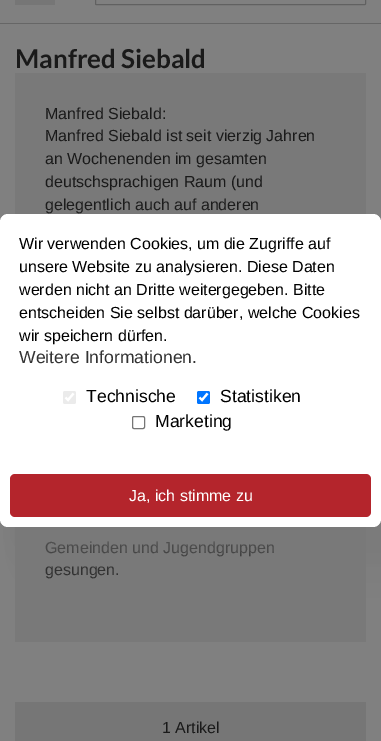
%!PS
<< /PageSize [381 741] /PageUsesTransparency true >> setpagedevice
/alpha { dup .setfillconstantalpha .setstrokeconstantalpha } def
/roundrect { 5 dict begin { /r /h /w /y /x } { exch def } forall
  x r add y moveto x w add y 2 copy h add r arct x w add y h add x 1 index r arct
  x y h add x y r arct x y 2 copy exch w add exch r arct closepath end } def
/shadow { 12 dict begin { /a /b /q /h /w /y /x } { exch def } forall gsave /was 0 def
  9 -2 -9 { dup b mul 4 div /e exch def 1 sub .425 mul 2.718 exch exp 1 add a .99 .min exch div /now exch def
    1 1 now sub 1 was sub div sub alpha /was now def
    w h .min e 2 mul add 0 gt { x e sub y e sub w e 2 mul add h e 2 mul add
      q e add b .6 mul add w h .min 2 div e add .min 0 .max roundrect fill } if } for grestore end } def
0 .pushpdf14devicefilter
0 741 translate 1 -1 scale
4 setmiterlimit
0.502 setgray
0 0 381 741 rectfill
0.4 setgray
0 23 381 1 rectfill
0.463 setgray
15 0 40 5 rectfill
0.38 setgray
95.5 -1.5 270 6 0.5 roundrect stroke
/Lato-Bold [26 0 0 -26 0 0] selectfont
0.102 setgray
15 68 moveto (Manfred Siebald) show
0.475 setgray
15 73 351 569 rectfill
/LiberationSans-Regular [16 0 0 -16 0 0] selectfont
0.102 setgray
45 119 moveto (Manfred Siebald:) show
45 141 moveto (Manfred Siebald ist seit vierzig Jahren) show
45 164 moveto (an Wochenenden im gesamten) show
45 187 moveto (deutschsprachigen Raum \(und) show
45 210 moveto (gelegentlich auch auf anderen) show
45 553 moveto (Gemeinden und Jugendgruppen) show
45 575 moveto (gesungen.) show
0.463 setgray
15 702 351 39 rectfill
0.102 setgray
162 733 moveto (1 Artikel) show
0.459 setgray
28 267 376 308 6 31.5 0.34 shadow
19 250 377 309 6 21.5 0.34 shadow
13 238 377 310 6 14 0.34 shadow
1 setgray
0 214 381 313 8 roundrect fill
0 setgray
19 249 moveto (Wir verwenden Cookies, um die Zugriffe auf) show
19 272 moveto (unsere Website zu analysieren. Diese Daten) show
19 295 moveto (werden nicht an Dritte weitergegeben. Bitte) show
19 318 moveto (entscheiden Sie selbst darüber, welche Cookies) show
19 341 moveto (wir speichern dürfen.) show
/LiberationSans-Regular [17.6 0 0 -17.6 0 0] selectfont
0.2 setgray
19 363 moveto (Weitere Informationen.) show
0.922 setgray
63 391 13 13 2 roundrect fill
1 setgray
2.1 setlinewidth
newpath 65.5 397.5 moveto 68 400 lineto 73.5 393.5 lineto stroke
0 setgray
86 402 moveto (Technische) show
0 0.459 1 setrgbcolor
197 391 13 13 2 roundrect fill
1 setgray
newpath 199.5 397.5 moveto 202 400 lineto 207.5 393.5 lineto stroke
0 setgray
220 402 moveto (Statistiken) show
0.463 setgray
1 setlinewidth
132.5 416.5 12 12 1.5 roundrect stroke
0 setgray
155 427 moveto (Marketing) show
0.706 0.145 0.173 setrgbcolor
10 474 361 43 5 roundrect fill
/LiberationSans-Regular [16 0 0 -16 0 0] selectfont
1 setgray
129 501 moveto (Ja, ich stimme zu) show
.poppdf14devicefilter showpage
